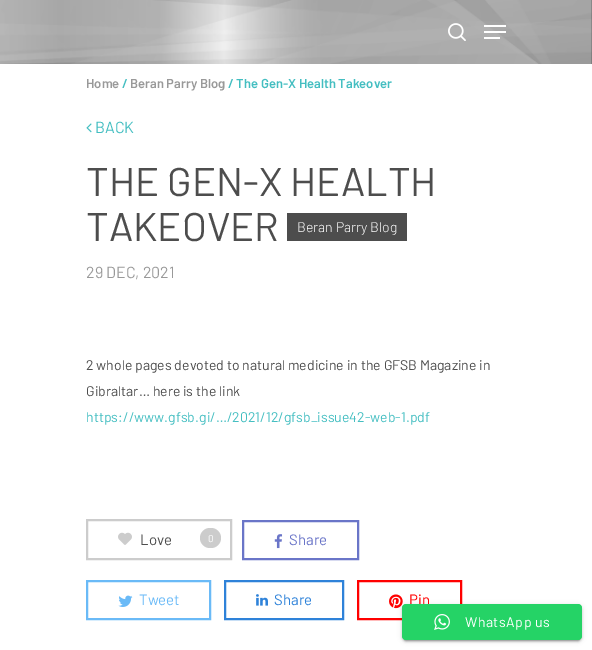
%!PS
<< /PageSize [592 650] /PageUsesTransparency true >> setpagedevice
/alpha { dup .setfillconstantalpha .setstrokeconstantalpha } def
/roundrect { 5 dict begin { /r /h /w /y /x } { exch def } forall
  x r add y moveto x w add y 2 copy h add r arct x w add y h add x 1 index r arct
  x y h add x y r arct x y 2 copy exch w add exch r arct closepath end } def
/shadow { 12 dict begin { /a /b /q /h /w /y /x } { exch def } forall gsave /was 0 def
  9 -2 -9 { dup b mul 4 div /e exch def 1 sub .425 mul 2.718 exch exp 1 add a .99 .min exch div /now exch def
    1 1 now sub 1 was sub div sub alpha /was now def
    w h .min e 2 mul add 0 gt { x e sub y e sub w e 2 mul add h e 2 mul add
      q e add b .6 mul add w h .min 2 div e add .min 0 .max roundrect fill } if } for grestore end } def
/picture { 5 dict begin { /h /w /y /x /name } { exch def } forall
  gsave x y translate w h scale
  w h 8 [w 0 0 h 0 0] name (r) file false 3 colorimage grestore end } def
0 .pushpdf14devicefilter
0 650 translate 1 -1 scale
4 setmiterlimit
1 setgray
0 0 592 650 rectfill
(img1.rgb) 0 0 592 64 picture
(img2.rgb) 448 23 18 18 picture
484 25 22 2 rectfill
484 37 16 2 rectfill
484 31 22 2 rectfill
/Barlow-SemiBold [13 0 0 -13 0 0] selectfont
0.6 setgray
86 88 moveto (Home) show
0.267 0.745 0.757 setrgbcolor
122 88 moveto (/) show
0.6 setgray
130 88 moveto (Beran Parry Blog) show
0.267 0.745 0.757 setrgbcolor
228 88 moveto (/ The Gen-X Health Takeover) show
(img3.rgb) 86 123 6 10 picture
/Barlow-Regular [16 0 0 -16 0 0] selectfont
95 133 moveto (BACK) show
/Barlow-Regular [40 0 0 -40 0 0] selectfont
0.302 setgray
86 196 moveto (THE GEN-X HEALTH) show
86 241 moveto (TAKEOVER) show
287 213 120 28 rectfill
/Barlow-Light [14 0 0 -14 0 0] selectfont
1 setgray
297 232 moveto (Beran Parry Blog) show
/Barlow-Regular [16 0 0 -16 0 0] selectfont
0.6 setgray
86 278 moveto (29 DEC, 2021) show
/Barlow-Regular [14 0 0 -14 0 0] selectfont
0.302 setgray
86 370 moveto (2 whole pages devoted to natural medicine in the GFSB Magazine in) show
86 396 moveto (Gibraltar… here is the link) show
0.267 0.745 0.757 setrgbcolor
86 422 moveto (https://www.gfsb.gi/…/2021/12/gfsb_issue42-web-1.pdf) show
0.8 setgray
2 setlinewidth
87 520 144 39 rectstroke
(img4.rgb) 118 532 14 13 picture
/Barlow-Regular [15 0 0 -15 0 0] selectfont
0.302 setgray
140 545 moveto (Love) show
0.8 setgray
200 528 21 20 10 roundrect fill
/Barlow-Regular [10 0 0 -10 0 0] selectfont
1 setgray
208 542 moveto (0) show
0.416 0.459 0.784 setrgbcolor
243 521 115 38 rectstroke
(img5.rgb) 274 534 9 15 picture
/Barlow-Regular [15 0 0 -15 0 0] selectfont
289 545 moveto (Share) show
0.416 0.729 0.969 setrgbcolor
87 581 123 38 rectstroke
(img6.rgb) 118 595 15 12 picture
139 605 moveto (Tweet) show
0.18 0.51 0.851 setrgbcolor
225 581 118 38 rectstroke
(img7.rgb) 256 594 12 12 picture
274 605 moveto (Share) show
1 0 0 setrgbcolor
358 581 103 38 rectstroke
(img8.rgb) 389 594 14 15 picture
409 605 moveto (Pin) show
0 setgray
404 609 176 32 2 0.5 0.2 shadow
402 605 180 36 4 2.5 0.12 shadow
402 606 180 36 4 1 0.14 shadow
0.145 0.827 0.4 setrgbcolor
402 604 180 36 4 roundrect fill
(img9.rgb) 434 614 16 16 picture
/Barlow-Regular [14 0 0 -14 0 0] selectfont
1 setgray
465 627 moveto 0.5 0 (WhatsApp us) ashow
.poppdf14devicefilter showpage
